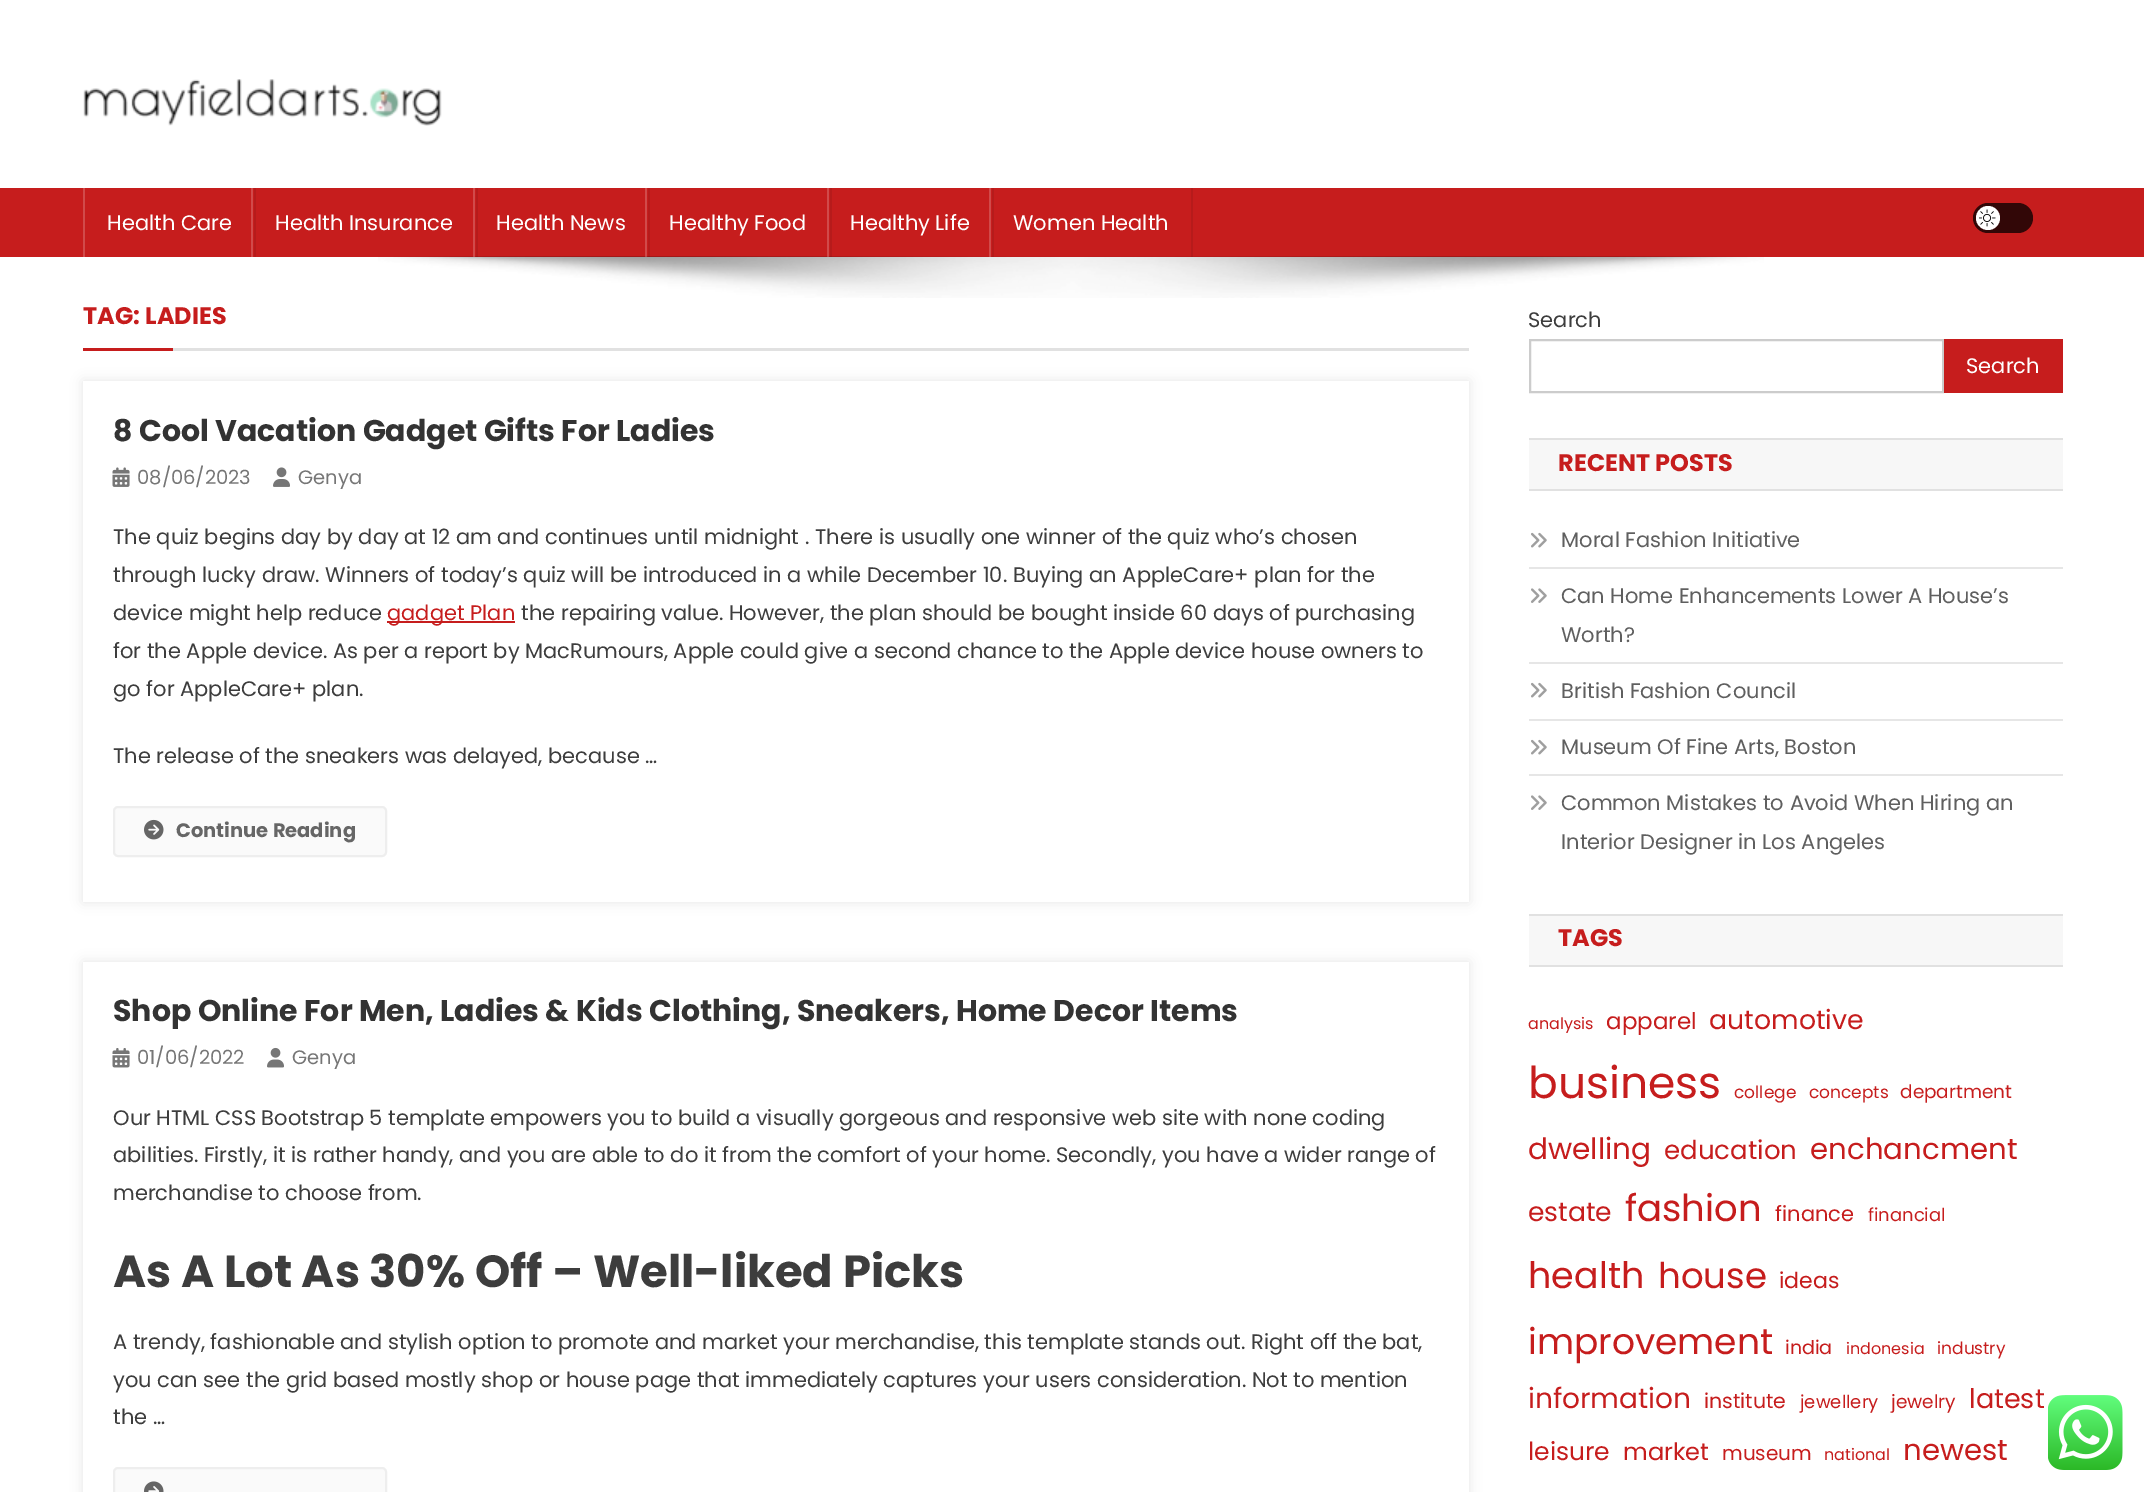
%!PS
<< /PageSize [2144 1492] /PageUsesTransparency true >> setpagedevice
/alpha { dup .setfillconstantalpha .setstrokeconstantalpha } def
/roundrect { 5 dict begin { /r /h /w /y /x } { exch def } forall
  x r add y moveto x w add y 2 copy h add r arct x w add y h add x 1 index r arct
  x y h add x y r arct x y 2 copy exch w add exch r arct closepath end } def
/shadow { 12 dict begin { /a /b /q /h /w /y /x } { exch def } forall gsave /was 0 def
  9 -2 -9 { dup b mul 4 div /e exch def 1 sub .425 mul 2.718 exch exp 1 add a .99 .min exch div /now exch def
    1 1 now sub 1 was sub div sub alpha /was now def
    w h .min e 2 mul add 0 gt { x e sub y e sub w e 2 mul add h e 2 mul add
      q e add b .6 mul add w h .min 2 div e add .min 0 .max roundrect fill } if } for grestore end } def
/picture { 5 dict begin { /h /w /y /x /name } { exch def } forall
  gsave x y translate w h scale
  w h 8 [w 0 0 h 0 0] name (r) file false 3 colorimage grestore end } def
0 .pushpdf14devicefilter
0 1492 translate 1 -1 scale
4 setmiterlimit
1 setgray
0 0 2144 1492 rectfill
(img1.rgb) 83 79 359 47 picture
0.776 0.114 0.114 setrgbcolor
0 188 2144 69 rectfill
0.714 0.106 0.106 setrgbcolor
254 188 2 69 rectfill
0.82 0.29 0.29 setrgbcolor
83 188 2 69 rectfill
/Poppins-Regular [21 0 0 -21 0 0] selectfont
1 setgray
107 230 moveto (Health Care) show
(img3.rgb) 378 256 1386 42 picture
0.08 alpha
0 setgray
476 188 2 69 rectfill
1 alpha
0.82 0.29 0.29 setrgbcolor
251 188 2 69 rectfill
1 setgray
275 230 moveto (Health Insurance) show
0.08 alpha
0 setgray
648 188 2 69 rectfill
0.2 alpha
1 setgray
473 188 2 69 rectfill
1 alpha
496 230 moveto (Health News) show
0.08 alpha
0 setgray
830 188 2 69 rectfill
0.2 alpha
1 setgray
645 188 2 69 rectfill
1 alpha
669 230 moveto (Healthy Food) show
0.08 alpha
0 setgray
992 188 2 69 rectfill
0.2 alpha
1 setgray
827 188 2 69 rectfill
1 alpha
850 230 moveto (Healthy Life) show
0.08 alpha
0 setgray
1191 188 2 69 rectfill
0.2 alpha
1 setgray
989 188 2 69 rectfill
1 alpha
1013 230 moveto (Women Health) show
0.196 0.027 0.027 setrgbcolor
1973 203 60 30 15 roundrect fill
1 setgray
newpath 1988 218 12 0 360 arc closepath fill
(img2.rgb) 1979 209 17 18 picture
0.882 setgray
173 348 1296 3 rectfill
/Poppins-Bold [24 0 0 -24 0 0] selectfont
0.776 0.114 0.114 setrgbcolor
83 324 moveto (TAG: LADIES) show
83 348 90 3 rectfill
gsave
newpath 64 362 moveto 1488 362 lineto 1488 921 lineto 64 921 lineto closepath 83 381 moveto 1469 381 lineto 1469 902 lineto 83 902 lineto closepath eoclip newpath
0 setgray
83 381 1386 521 0 6 0.1 shadow
grestore
/Poppins-Bold [30 0 0 -30 0 0] selectfont
0.2 setgray
113 441 moveto (8 Cool Vacation Gadget Gifts For Ladies) show
(img4.rgb) 112 467 18 20 picture
/Poppins-Regular [19.5 0 0 -19.5 0 0] selectfont
0.463 setgray
137 484 moveto (08/06/2023) show
(img5.rgb) 273 467 17 20 picture
298 484 moveto (Genya) show
/Poppins-Regular [21 0 0 -21 0 0] selectfont
0.239 setgray
113 544 moveto (The quiz begins day by day at 12 am and continues until midnight . There is usually one winner of the quiz who’s chosen) show
113 582 moveto (through lucky draw. Winners of today’s quiz will be introduced in a while December 10. Buying an AppleCare+ plan for the) show
113 620 moveto (device might help reduce) show
0.776 0.114 0.114 setrgbcolor
387 621 128 2 rectfill
387 620 moveto (gadget Plan) show
0.239 setgray
521 620 moveto (the repairing value. However, the plan should be bought inside 60 days of purchasing) show
113 658 moveto (for the Apple device. As per a report by MacRumours, Apple could give a second chance to the Apple device house owners to) show
113 696 moveto (go for AppleCare+ plan.) show
113 763 moveto (The release of the sneakers was delayed, because …) show
0.98 setgray
114 807 272 49 4 roundrect gsave fill grestore
0.933 setgray
2 setlinewidth
stroke
(img6.rgb) 144 819 20 21 picture
/Poppins-Bold [19.5 0 0 -19.5 0 0] selectfont
0.4 setgray
176 837 moveto (Continue Reading) show
gsave
newpath 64 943 moveto 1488 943 lineto 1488 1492 lineto 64 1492 lineto closepath 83 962 moveto 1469 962 lineto 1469 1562 lineto 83 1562 lineto closepath eoclip newpath
0 setgray
83 962 1386 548 0 6 0.1 shadow
grestore
/Poppins-Bold [30 0 0 -30 0 0] selectfont
0.2 setgray
113 1021 moveto (Shop Online For Men, Ladies & Kids Clothing, Sneakers, Home Decor Items) show
(img7.rgb) 112 1048 18 20 picture
/Poppins-Regular [19.5 0 0 -19.5 0 0] selectfont
0.463 setgray
137 1064 moveto (01/06/2022) show
(img8.rgb) 267 1047 17 21 picture
292 1064 moveto (Genya) show
/Poppins-Regular [21 0 0 -21 0 0] selectfont
0.239 setgray
113 1125 moveto (Our HTML CSS Bootstrap 5 template empowers you to build a visually gorgeous and responsive web site with none coding) show
113 1162 moveto (abilities. Firstly, it is rather handy, and you are able to do it from the comfort of your home. Secondly, you have a wider range of) show
113 1200 moveto (merchandise to choose from.) show
/Poppins-Bold [45 0 0 -45 0 0] selectfont
113 1287 moveto (As A Lot As 30% Off – Well-liked Picks) show
/Poppins-Regular [21 0 0 -21 0 0] selectfont
113 1349 moveto (A trendy, fashionable and stylish option to promote and market your merchandise, this template stands out. Right off the bat,) show
113 1387 moveto (you can see the grid based mostly shop or house page that immediately captures your users consideration. Not to mention) show
113 1424 moveto (the …) show
0.98 setgray
114 1468 272 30 4 roundrect gsave fill grestore
0.933 setgray
stroke
(img9.rgb) 144 1481 20 11 picture
0.239 setgray
1528 327 moveto (Search) show
0.8 setgray
1530 340 413 52 rectstroke
0.776 0.114 0.114 setrgbcolor
1944 339 119 54 rectfill
1 setgray
1966 373 moveto (Search) show
0.969 setgray
1529 440 534 49 rectfill
0.882 setgray
1529 438 534 2 rectfill
1529 489 534 2 rectfill
/Poppins-Bold [24 0 0 -24 0 0] selectfont
0.776 0.114 0.114 setrgbcolor
1558 471 moveto (RECENT POSTS) show
0.902 setgray
1529 567 534 2 rectfill
(img10.rgb) 1531 532 16 16 picture
/Poppins-Regular [21 0 0 -21 0 0] selectfont
0.373 setgray
1561 547 moveto (Moral Fashion Initiative) show
0.902 setgray
1529 662 534 2 rectfill
(img11.rgb) 1531 588 16 15 picture
0.373 setgray
1561 603 moveto (Can Home Enhancements Lower A House’s) show
1561 642 moveto (Worth?) show
0.902 setgray
1529 719 534 2 rectfill
(img10.rgb) 1531 682 16 16 picture
0.373 setgray
1561 698 moveto (British Fashion Council) show
0.902 setgray
1529 774 534 2 rectfill
(img10.rgb) 1531 739 16 16 picture
0.373 setgray
1561 754 moveto (Museum Of Fine Arts, Boston) show
(img11.rgb) 1531 795 16 15 picture
1561 810 moveto (Common Mistakes to Avoid When Hiring an) show
1561 849 moveto (Interior Designer in Los Angeles) show
0.969 setgray
1529 916 534 49 rectfill
0.882 setgray
1529 914 534 2 rectfill
1529 965 534 2 rectfill
/Poppins-Bold [24 0 0 -24 0 0] selectfont
0.776 0.114 0.114 setrgbcolor
1558 946 moveto (TAGS) show
/Poppins-Regular [16 0 0 -16 0 0] selectfont
1528 1029 moveto (analysis) show
/Poppins-Regular [23 0 0 -23 0 0] selectfont
1606 1029 moveto (apparel) show
/Poppins-Regular [26.75 0 0 -26.75 0 0] selectfont
1709 1029 moveto (automotive) show
/Poppins-Regular [44 0 0 -44 0 0] selectfont
1528 1098 moveto (business) show
/Poppins-Regular [17 0 0 -17 0 0] selectfont
1734 1098 moveto (college) show
1809 1098 moveto (concepts) show
/Poppins-Regular [18.5 0 0 -18.5 0 0] selectfont
1900 1098 moveto (department) show
/Poppins-Regular [29.5 0 0 -29.5 0 0] selectfont
1528 1159 moveto (dwelling) show
/Poppins-Regular [26 0 0 -26 0 0] selectfont
1664 1159 moveto (education) show
/Poppins-Regular [29.25 0 0 -29.25 0 0] selectfont
1810 1159 moveto (enchancment) show
/Poppins-Regular [26.5 0 0 -26.5 0 0] selectfont
1528 1221 moveto (estate) show
/Poppins-Regular [37 0 0 -37 0 0] selectfont
1625 1221 moveto (fashion) show
/Poppins-Regular [21 0 0 -21 0 0] selectfont
1775 1221 moveto (finance) show
/Poppins-Regular [18 0 0 -18 0 0] selectfont
1868 1221 moveto (financial) show
/Poppins-Regular [36.5 0 0 -36.5 0 0] selectfont
1528 1288 moveto (health) show
/Poppins-Regular [35.5 0 0 -35.5 0 0] selectfont
1658 1288 moveto (house) show
/Poppins-Regular [22 0 0 -22 0 0] selectfont
1779 1288 moveto (ideas) show
/Poppins-Regular [36 0 0 -36 0 0] selectfont
1528 1354 moveto (improvement) show
/Poppins-Regular [19 0 0 -19 0 0] selectfont
1785 1354 moveto (india) show
/Poppins-Regular [16 0 0 -16 0 0] selectfont
1846 1354 moveto (indonesia) show
/Poppins-Regular [17 0 0 -17 0 0] selectfont
1937 1354 moveto (industry) show
/Poppins-Regular [28 0 0 -28 0 0] selectfont
1528 1408 moveto (information) show
/Poppins-Regular [20.5 0 0 -20.5 0 0] selectfont
1704 1408 moveto (institute) show
/Poppins-Regular [18 0 0 -18 0 0] selectfont
1800 1408 moveto (jewellery) show
/Poppins-Regular [18.5 0 0 -18.5 0 0] selectfont
1891 1408 moveto (jewelry) show
/Poppins-Regular [27 0 0 -27 0 0] selectfont
1969 1408 moveto (latest) show
/Poppins-Regular [25 0 0 -25 0 0] selectfont
1528 1460 moveto (leisure) show
/Poppins-Regular [24 0 0 -24 0 0] selectfont
1623 1460 moveto (market) show
/Poppins-Regular [20 0 0 -20 0 0] selectfont
1722 1460 moveto (museum) show
/Poppins-Regular [16 0 0 -16 0 0] selectfont
1824 1460 moveto (national) show
/Poppins-Regular [29.25 0 0 -29.25 0 0] selectfont
1903 1460 moveto (newest) show
(img12.rgb) 2048 1395 75 75 picture
.poppdf14devicefilter showpage
